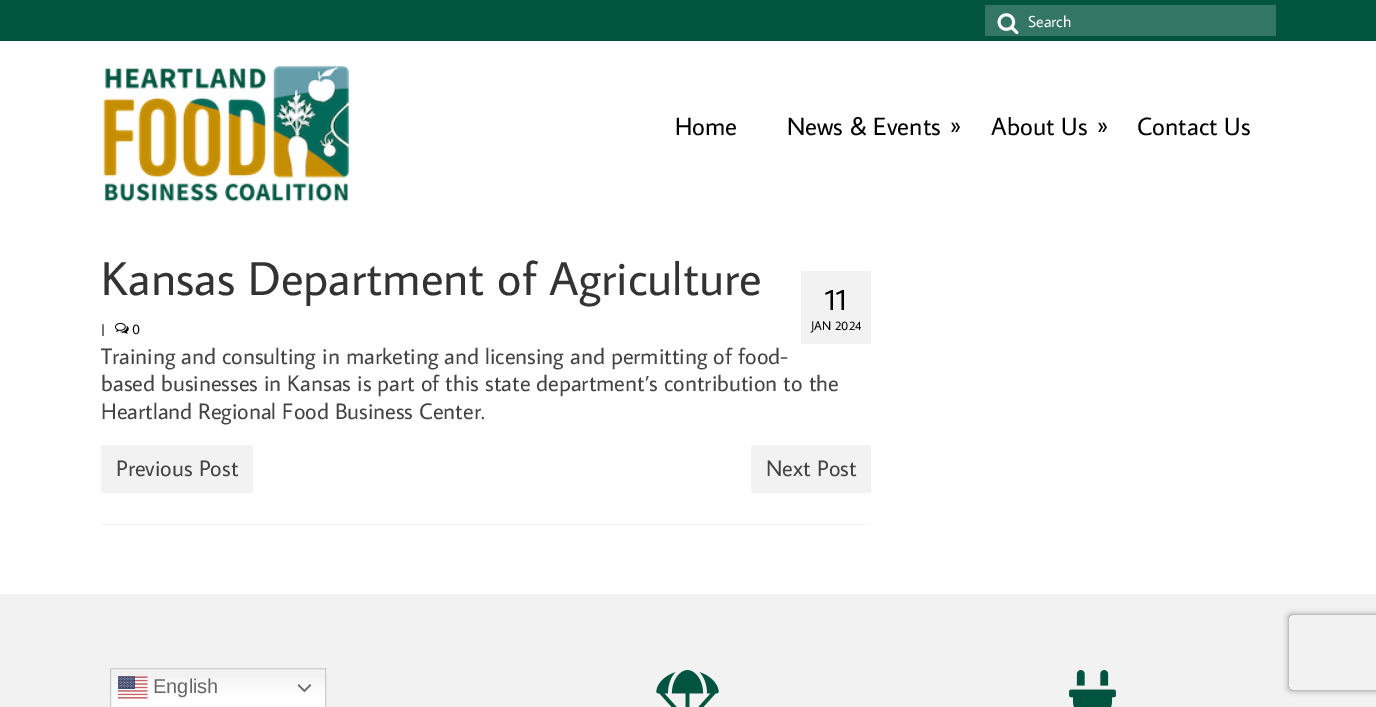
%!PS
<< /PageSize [1376 707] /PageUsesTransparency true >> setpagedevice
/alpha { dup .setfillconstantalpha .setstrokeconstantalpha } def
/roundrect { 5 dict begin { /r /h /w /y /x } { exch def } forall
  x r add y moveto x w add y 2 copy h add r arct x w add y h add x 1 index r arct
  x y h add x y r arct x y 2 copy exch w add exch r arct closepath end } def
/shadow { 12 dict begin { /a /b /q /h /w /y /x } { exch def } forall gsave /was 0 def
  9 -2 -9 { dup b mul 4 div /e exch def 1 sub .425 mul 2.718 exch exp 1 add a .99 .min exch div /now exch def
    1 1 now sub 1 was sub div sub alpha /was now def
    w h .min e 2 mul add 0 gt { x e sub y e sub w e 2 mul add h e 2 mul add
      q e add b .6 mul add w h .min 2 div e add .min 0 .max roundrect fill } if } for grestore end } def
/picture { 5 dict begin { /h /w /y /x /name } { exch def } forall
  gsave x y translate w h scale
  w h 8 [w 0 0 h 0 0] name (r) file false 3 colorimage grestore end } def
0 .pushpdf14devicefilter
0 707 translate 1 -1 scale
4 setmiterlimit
1 setgray
0 0 1376 707 rectfill
0 0.329 0.251 setrgbcolor
0 0 1376 41 rectfill
0.2 0.463 0.4 setrgbcolor
985 5 291 31 rectfill
(img1.rgb) 997 13 22 22 picture
/AverageSans-Regular [16 0 0 -16 0 0] selectfont
1 setgray
1028 27 moveto (Search) show
(img2.rgb) 103 66 246 136 picture
/AverageSans-Regular [25 0 0 -25 0 0] selectfont
0 setgray
675 135 moveto (Home) show
787 135 moveto (News & Events) show
950 133 moveto (») show
991 135 moveto (About Us) show
1097 133 moveto (») show
1137 135 moveto (Contact Us) show
/AverageSans-Regular [47.5 0 0 -47.5 0 0] selectfont
0.2 setgray
101 295 moveto (Kansas Department of Agriculture) show
/AverageSans-Regular [14 0 0 -14 0 0] selectfont
0 setgray
101 334 moveto (|) show
(img3.rgb) 115 322 14 12 picture
132 334 moveto (0) show
0.949 setgray
801 271 70 73 rectfill
/AverageSans-Regular [30 0 0 -30 0 0] selectfont
0 setgray
825 310 moveto (11) show
/AverageSans-Regular [12.5 0 0 -12.5 0 0] selectfont
811 330 moveto (JAN 2024) show
/AverageSans-Regular [22.5 0 0 -22.5 0 0] selectfont
0.267 setgray
101 364 moveto (Training and consulting in marketing and licensing and permitting of food-) show
101 391 moveto (based businesses in Kansas is part of this state department’s contribution to the) show
101 419 moveto (Heartland Regional Food Business Center.) show
0.949 setgray
101 524 770 1 rectfill
101 445 152 48 rectfill
0.267 setgray
116 476 moveto (Previous Post) show
0.949 setgray
751 445 120 48 rectfill
0.267 setgray
766 476 moveto (Next Post) show
0.949 setgray
0 594 1376 113 rectfill
(img4.rgb) 656 670 63 37 picture
(img5.rgb) 1069 670 47 37 picture
gsave newpath 111 678 moveto 325 678 lineto 325 707 lineto 111 707 lineto closepath clip newpath
<< /ShadingType 2 /ColorSpace /DeviceRGB /Coords [218 668 218 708] /Extend [true true] /Function << /FunctionType 3 /Domain [0 1] /Functions [<< /FunctionType 2 /Domain [0 1] /C0 [0.937 0.937 0.937] /C1 [1 1 1] /N 1 >> << /FunctionType 2 /Domain [0 1] /C0 [1 1 1] /C1 [1 1 1] /N 1 >>] /Bounds [0.7] /Encode [0 1 0 1] >> >> shfill grestore
0.8 setgray
110.5 668.5 215 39 rectstroke
(img6.rgb) 118 676 30 23 picture
/LiberationSans-Regular [20 0 0 -20 0 0] selectfont
0.4 setgray
153 693 moveto (English) show
(img7.rgb) 298 684 13 9 picture
gsave
newpath 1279 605 moveto 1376 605 lineto 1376 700 lineto 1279 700 lineto closepath 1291.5 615 moveto 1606.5 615 lineto 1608 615 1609 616 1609 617.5 curveto 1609 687.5 lineto 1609 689 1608 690 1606.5 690 curveto 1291.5 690 lineto 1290 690 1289 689 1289 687.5 curveto 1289 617.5 lineto 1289 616 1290 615 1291.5 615 curveto closepath eoclip newpath
0.502 setgray
1289 615 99 75 2.5 3 1 shadow
grestore
.poppdf14devicefilter showpage
